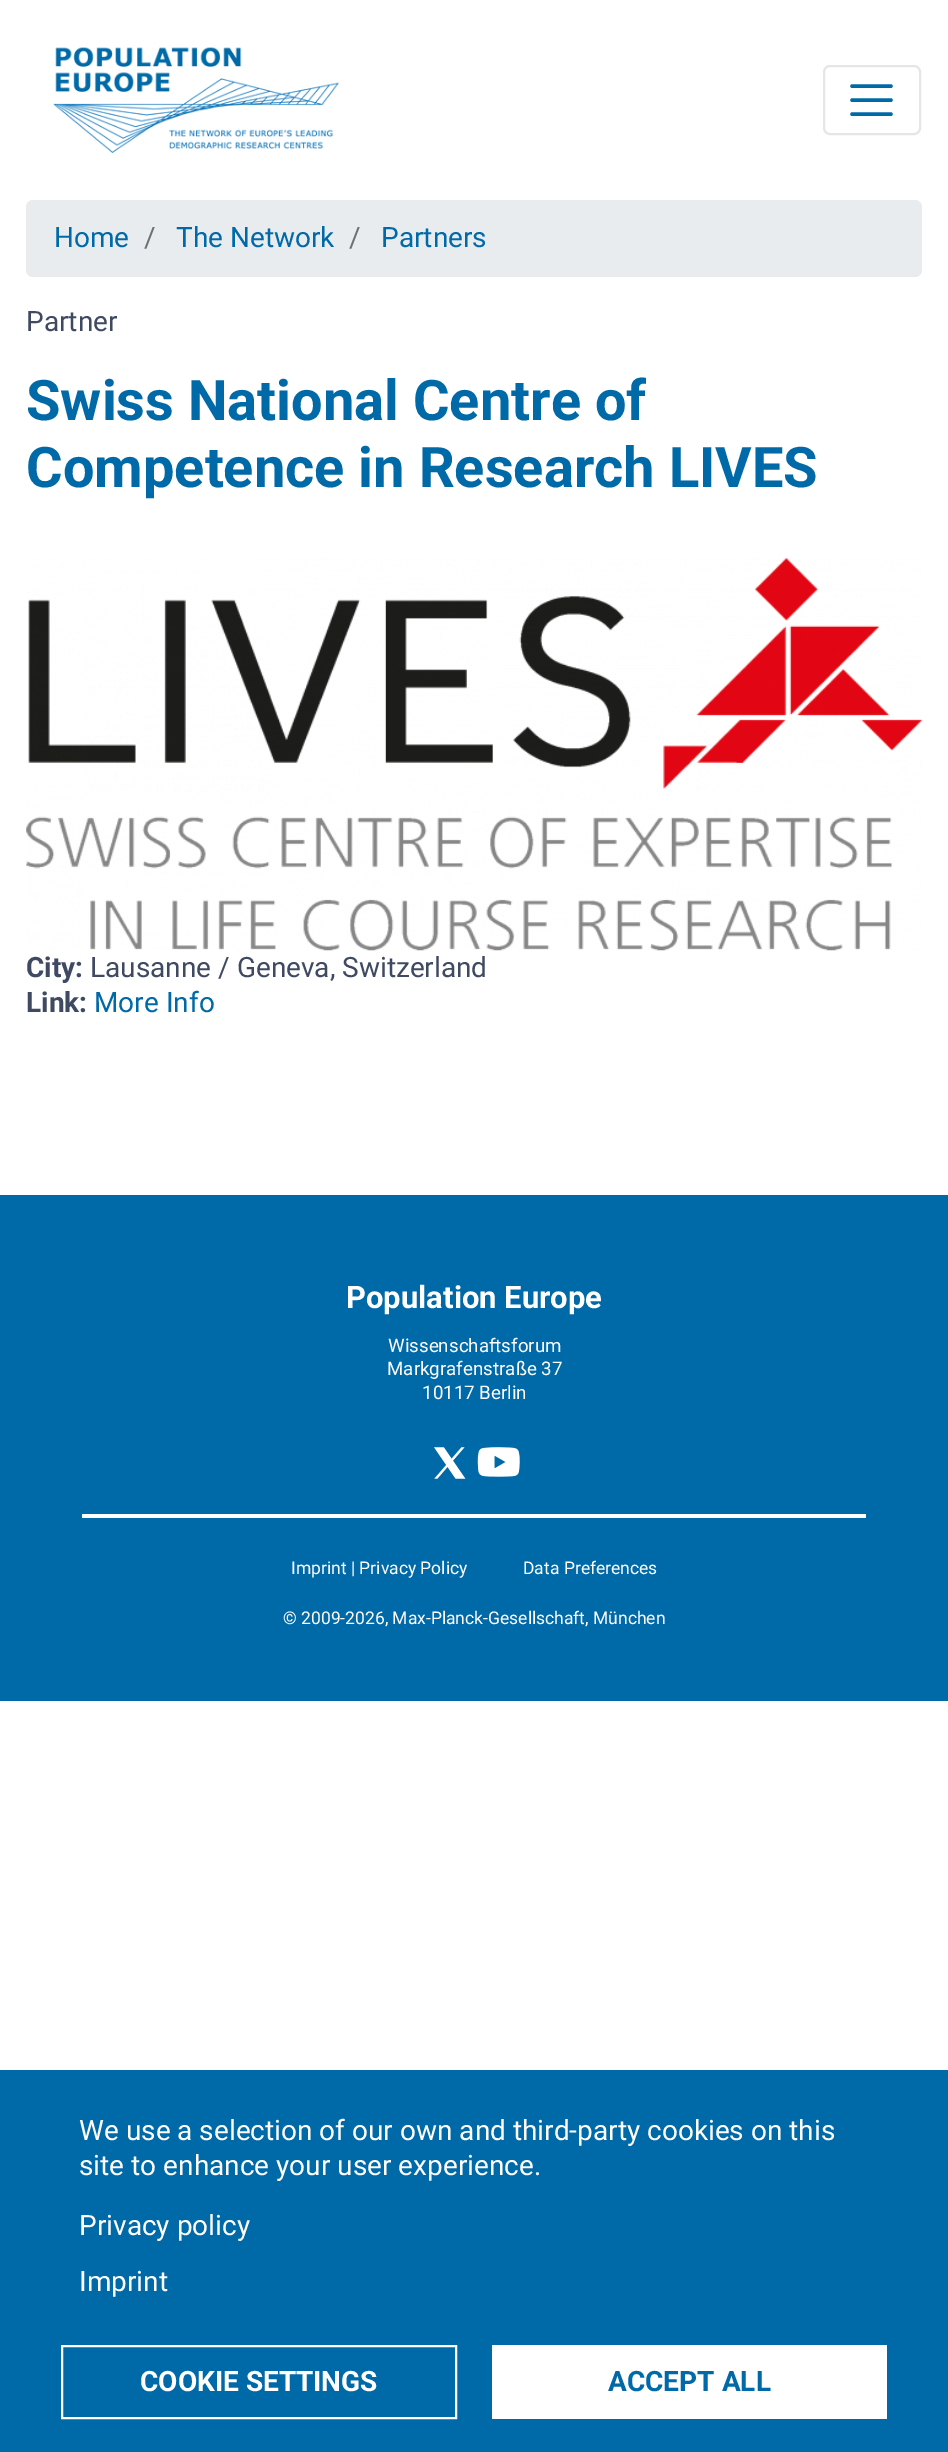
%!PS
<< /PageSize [948 2452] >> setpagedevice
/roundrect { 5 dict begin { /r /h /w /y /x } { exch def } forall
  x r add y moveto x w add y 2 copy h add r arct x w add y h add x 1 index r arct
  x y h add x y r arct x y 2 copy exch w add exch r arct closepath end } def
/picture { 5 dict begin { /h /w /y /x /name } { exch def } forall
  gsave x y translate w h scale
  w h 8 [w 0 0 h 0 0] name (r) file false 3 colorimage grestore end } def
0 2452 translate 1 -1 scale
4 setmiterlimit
1 setgray
0 0 948 2452 rectfill
(img1.rgb) 53 47 286 106 picture
0.902 setgray
2 setlinewidth
824 66 96 68 6 roundrect stroke
0 0.412 0.655 setrgbcolor
3.5 setlinewidth
1 setlinecap
newpath 852 86 moveto 891 86 lineto 852 100 moveto 891 100 lineto 852 114 moveto 891 114 lineto stroke
0.914 0.925 0.937 setrgbcolor
26 200 896 77 7 roundrect fill
/Roboto-Regular [28 0 0 -28 0 0] selectfont
0 0.412 0.655 setrgbcolor
54 247 moveto (Home) show
0.439 setgray
144 247 moveto (/) show
0 0.412 0.655 setrgbcolor
176 247 moveto (The Network) show
0.439 setgray
349 247 moveto (/) show
0 0.412 0.655 setrgbcolor
381 247 moveto (Partners) show
0.247 0.286 0.38 setrgbcolor
26 331 moveto (Partner) show
/Roboto-Bold [56 0 0 -56 0 0] selectfont
0 0.412 0.655 setrgbcolor
26 420 moveto (Swiss National Centre of) show
26 487 moveto (Competence in Research LIVES) show
(img2.rgb) 26 558 897 393 picture
/Roboto-Bold [28 0 0 -28 0 0] selectfont
0.247 0.286 0.38 setrgbcolor
26 977 moveto (City:) show
/Roboto-Regular [28 0 0 -28 0 0] selectfont
90 977 moveto (Lausanne / Geneva, Switzerland) show
/Roboto-Bold [28 0 0 -28 0 0] selectfont
26 1012 moveto (Link:) show
/Roboto-Regular [28 0 0 -28 0 0] selectfont
0 0.412 0.655 setrgbcolor
94 1012 moveto (More Info) show
0 1195 948 506 rectfill
/Roboto-Bold [31 0 0 -31 0 0] selectfont
1 setgray
346 1308 moveto (Population Europe) show
/Roboto-Regular [18.75 0 0 -18.75 0 0] selectfont
388 1352 moveto (Wissenschaftsforum) show
387 1375 moveto (Markgrafenstraße 37) show
422 1399 moveto (10117 Berlin) show
(img3.rgb) 434 1447 32 32 picture
(img4.rgb) 477 1447 43 30 picture
82 1514 784 4 rectfill
/Roboto-Regular [17.5 0 0 -17.5 0 0] selectfont
291 1574 moveto (Imprint | Privacy Policy) show
523 1574 moveto (Data Preferences) show
283 1624 moveto (© 2009-2026, Max-Planck-Gesellschaft, München) show
0 0.412 0.655 setrgbcolor
0 2070 948 382 rectfill
/Roboto-Regular [28 0 0 -28 0 0] selectfont
1 setgray
79 2140 moveto (We use a selection of our own and third-party cookies on this) show
79 2175 moveto (site to enhance your user experience.) show
79 2235 moveto (Privacy policy) show
79 2291 moveto (Imprint) show
2 setlinewidth
0 setlinecap
62 2346 394 72 rectstroke
/Roboto-Bold [28 0 0 -28 0 0] selectfont
140 2391 moveto (COOKIE SETTINGS) show
492 2345 395 74 rectfill
0 0.412 0.655 setrgbcolor
608 2391 moveto (ACCEPT ALL) show
showpage
